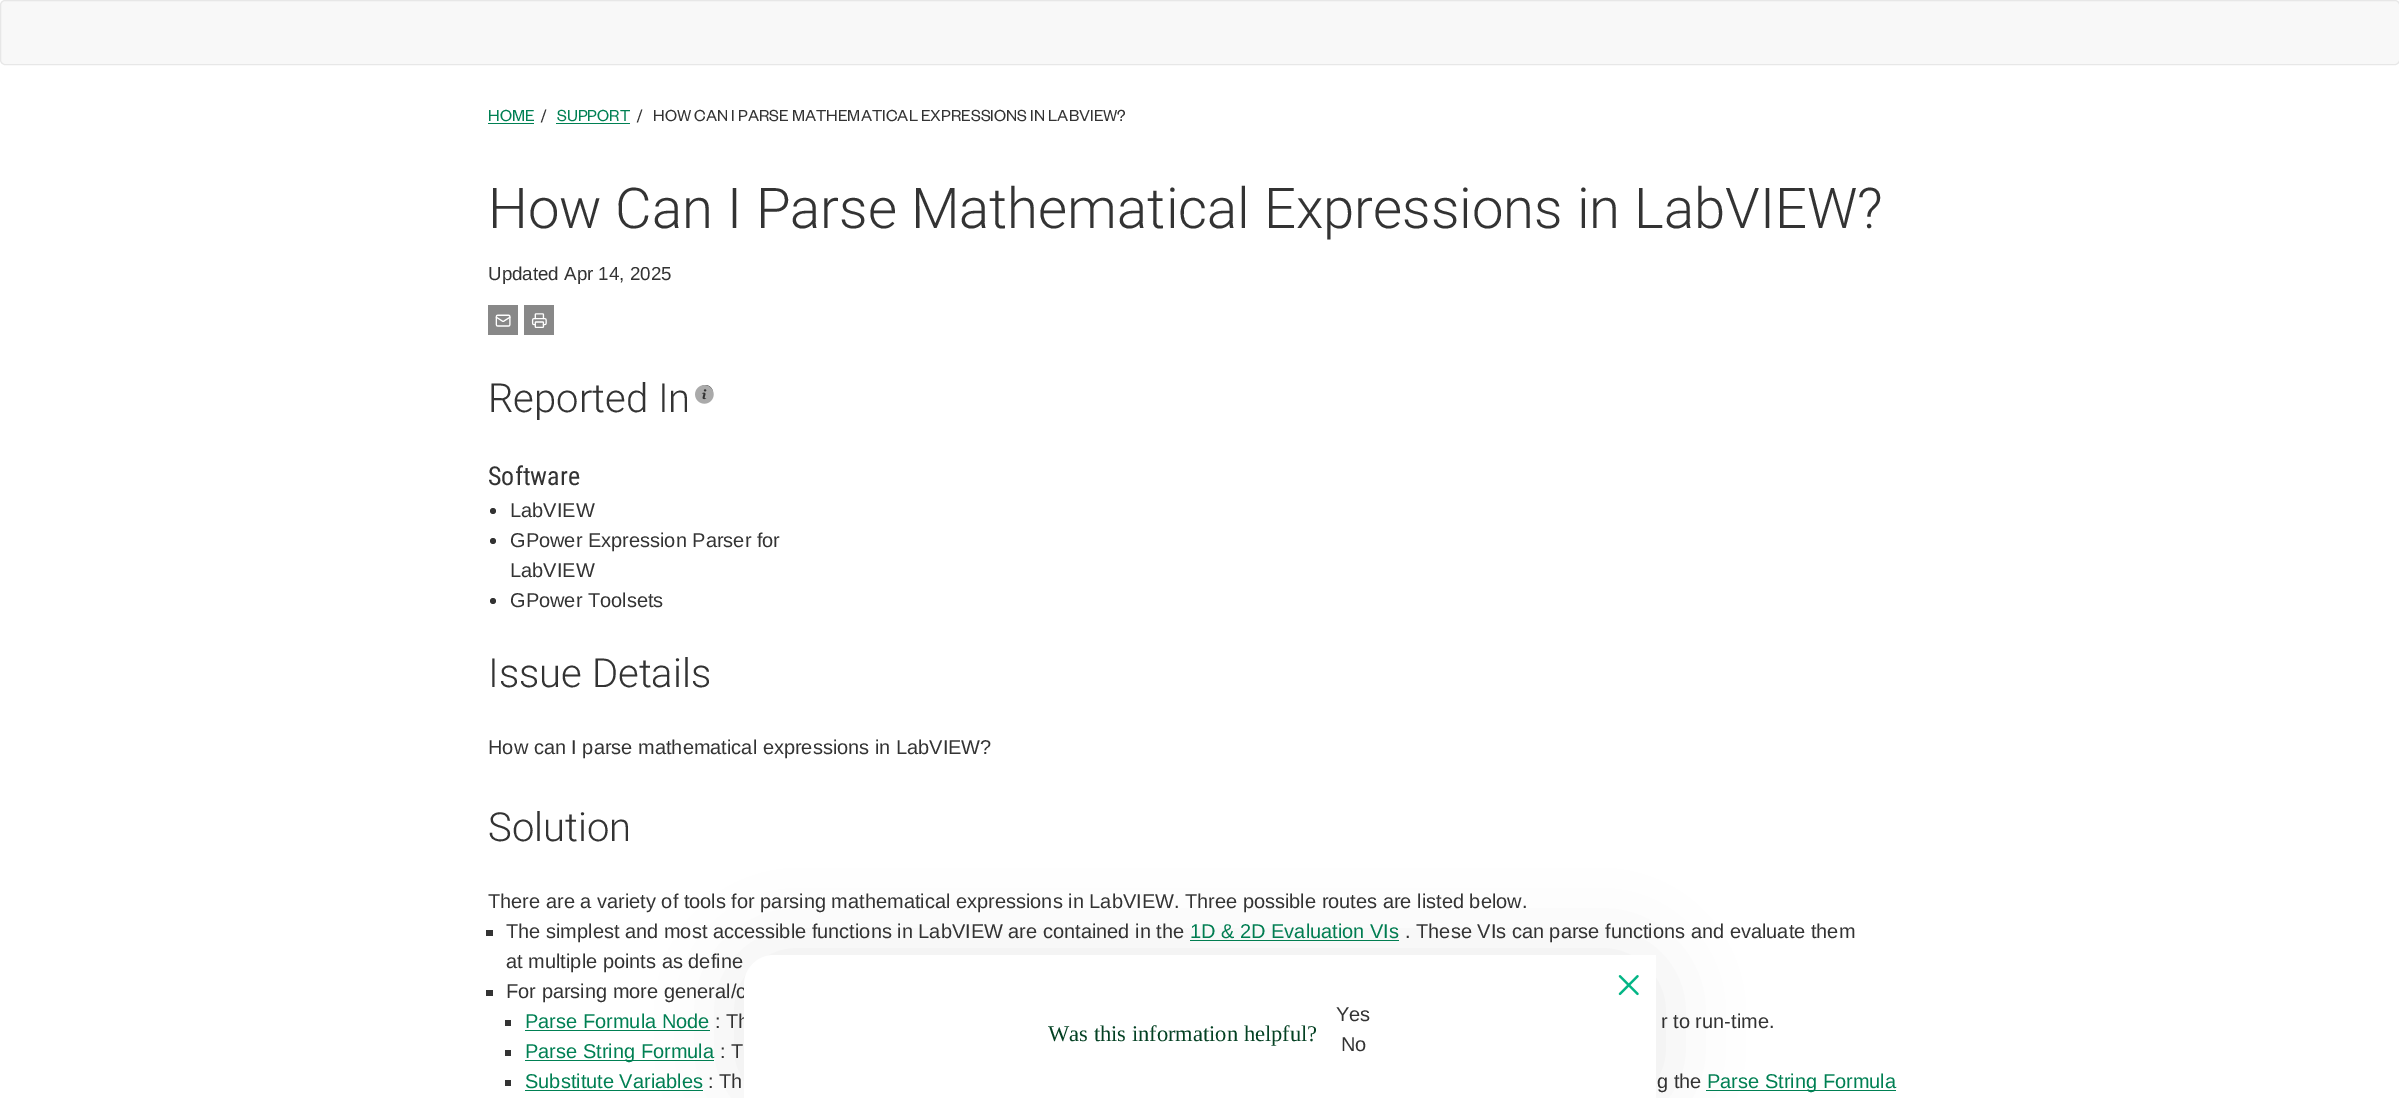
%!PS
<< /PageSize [2399 1098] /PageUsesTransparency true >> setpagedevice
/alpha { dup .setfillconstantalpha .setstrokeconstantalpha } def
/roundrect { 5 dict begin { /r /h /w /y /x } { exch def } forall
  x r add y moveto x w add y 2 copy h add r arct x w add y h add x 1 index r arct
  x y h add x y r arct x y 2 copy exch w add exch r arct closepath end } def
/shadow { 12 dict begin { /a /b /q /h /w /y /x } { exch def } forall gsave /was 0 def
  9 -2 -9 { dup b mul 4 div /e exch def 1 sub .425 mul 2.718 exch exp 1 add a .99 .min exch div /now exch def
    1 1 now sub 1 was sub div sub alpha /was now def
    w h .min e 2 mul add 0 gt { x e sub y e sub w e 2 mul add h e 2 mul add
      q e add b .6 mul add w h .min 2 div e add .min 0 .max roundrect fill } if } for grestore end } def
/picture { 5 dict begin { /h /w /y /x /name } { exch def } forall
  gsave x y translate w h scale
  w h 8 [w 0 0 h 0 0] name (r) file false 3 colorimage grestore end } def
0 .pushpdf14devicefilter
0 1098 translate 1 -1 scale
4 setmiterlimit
1 setgray
0 0 2399 1098 rectfill
0.973 setgray
0.5 0.5 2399 64 4.5 roundrect gsave fill grestore
0.906 setgray
stroke
/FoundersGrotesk-Regular [17.5 0 0 -17.5 0 0] selectfont
0 0.502 0.325 setrgbcolor
488 121 moveto (HOME) show
488 123 46 1 rectfill
0.2 setgray
541 121 moveto (/) show
0 0.502 0.325 setrgbcolor
557 121 moveto (SUPPORT) show
556 123 74 1 rectfill
0.2 setgray
637 121 moveto (/) show
653 121 moveto (HOW CAN I PARSE MATHEMATICAL EXPRESSIONS IN LABVIEW?) show
/Roboto-Light [56.25 0 0 -56.25 0 0] selectfont
488 228 moveto (How Can I Parse Mathematical Expressions in LabVIEW?) show
/LiberationSans-Regular [18.75 0 0 -18.75 0 0] selectfont
488 280 moveto (Updated Apr 14, 2025) show
0.533 setgray
488 305 30 30 rectfill
(img1.rgb) 495 314 16 13 picture
524 305 30 30 rectfill
(img2.rgb) 531 313 16 15 picture
/Roboto-Light [40 0 0 -40 0 0] selectfont
0.2 setgray
488 412 moveto (Reported In) show
newpath 705.5 392.5 7.5 0 360 arc closepath fill
(img3.rgb) 695 385 19 19 picture
/RobotoCondensed-Regular [26 0 0 -26 0 0] selectfont
488 485 moveto (Software) show
newpath 493 511 3 0 360 arc closepath fill
/LiberationSans-Regular [20 0 0 -20 0 0] selectfont
510 517 moveto (LabVIEW) show
newpath 493 541 3 0 360 arc closepath fill
510 547 moveto (GPower Expression Parser for) show
510 577 moveto (LabVIEW) show
newpath 493 601 3 0 360 arc closepath fill
510 607 moveto (GPower Toolsets) show
/Roboto-Light [40 0 0 -40 0 0] selectfont
488 687 moveto (Issue Details) show
/LiberationSans-Regular [20 0 0 -20 0 0] selectfont
488 754 moveto (How can I parse mathematical expressions in LabVIEW?) show
/Roboto-Light [40 0 0 -40 0 0] selectfont
488 841 moveto (Solution) show
/LiberationSans-Regular [20 0 0 -20 0 0] selectfont
488 908 moveto (There are a variety of tools for parsing mathematical expressions in LabVIEW. Three possible routes are listed below.) show
486 930 7 6 rectfill
506 938 moveto (The simplest and most accessible functions in LabVIEW are contained in the) show
0 0.502 0.325 setrgbcolor
1190 938 moveto (1D & 2D Evaluation VIs) show
1190 940 209 1 rectfill
0.2 setgray
1405 938 moveto (. These VIs can parse functions and evaluate them) show
506 968 moveto (at multiple points as define) show
486 990 7 6 rectfill
506 998 moveto (For parsing more general/c) show
505 1020 6 6 rectfill
0 0.502 0.325 setrgbcolor
525 1028 moveto (Parse Formula Node) show
525 1030 185 1 rectfill
0.2 setgray
715 1028 moveto (: Th) show
1661 1028 moveto (r to run-time.) show
505 1050 6 6 rectfill
0 0.502 0.325 setrgbcolor
525 1060 189 1 rectfill
525 1058 moveto (Parse String Formula) show
0.2 setgray
720 1058 moveto (: T) show
505 1080 6 6 rectfill
0 0.502 0.325 setrgbcolor
525 1088 moveto (Substitute Variables) show
525 1090 178 1 rectfill
0.2 setgray
708 1088 moveto (: Th) show
1657 1088 moveto (g the) show
0 0.502 0.325 setrgbcolor
1706 1090 190 1 rectfill
1707 1088 moveto (Parse String Formula) show
0 setgray
744 958 912 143 30 40 0.08 shadow
1 setgray
newpath 774 955 moveto 1656 955 lineto 1656 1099 lineto 744 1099 lineto 744 985 lineto 744 968.5 757.5 955 774 955 curveto closepath fill
(img4.rgb) 1618 975 21 21 picture
/LiberationSerif-Regular [22.5 0 0 -22.5 0 0] selectfont
0.016 0.255 0.137 setrgbcolor
1048 1041 moveto (Was this information helpful?) show
/LiberationSans-Regular [20 0 0 -20 0 0] selectfont
0.2 setgray
1336 1021 moveto (Yes) show
1341 1051 moveto (No) show
.poppdf14devicefilter showpage
